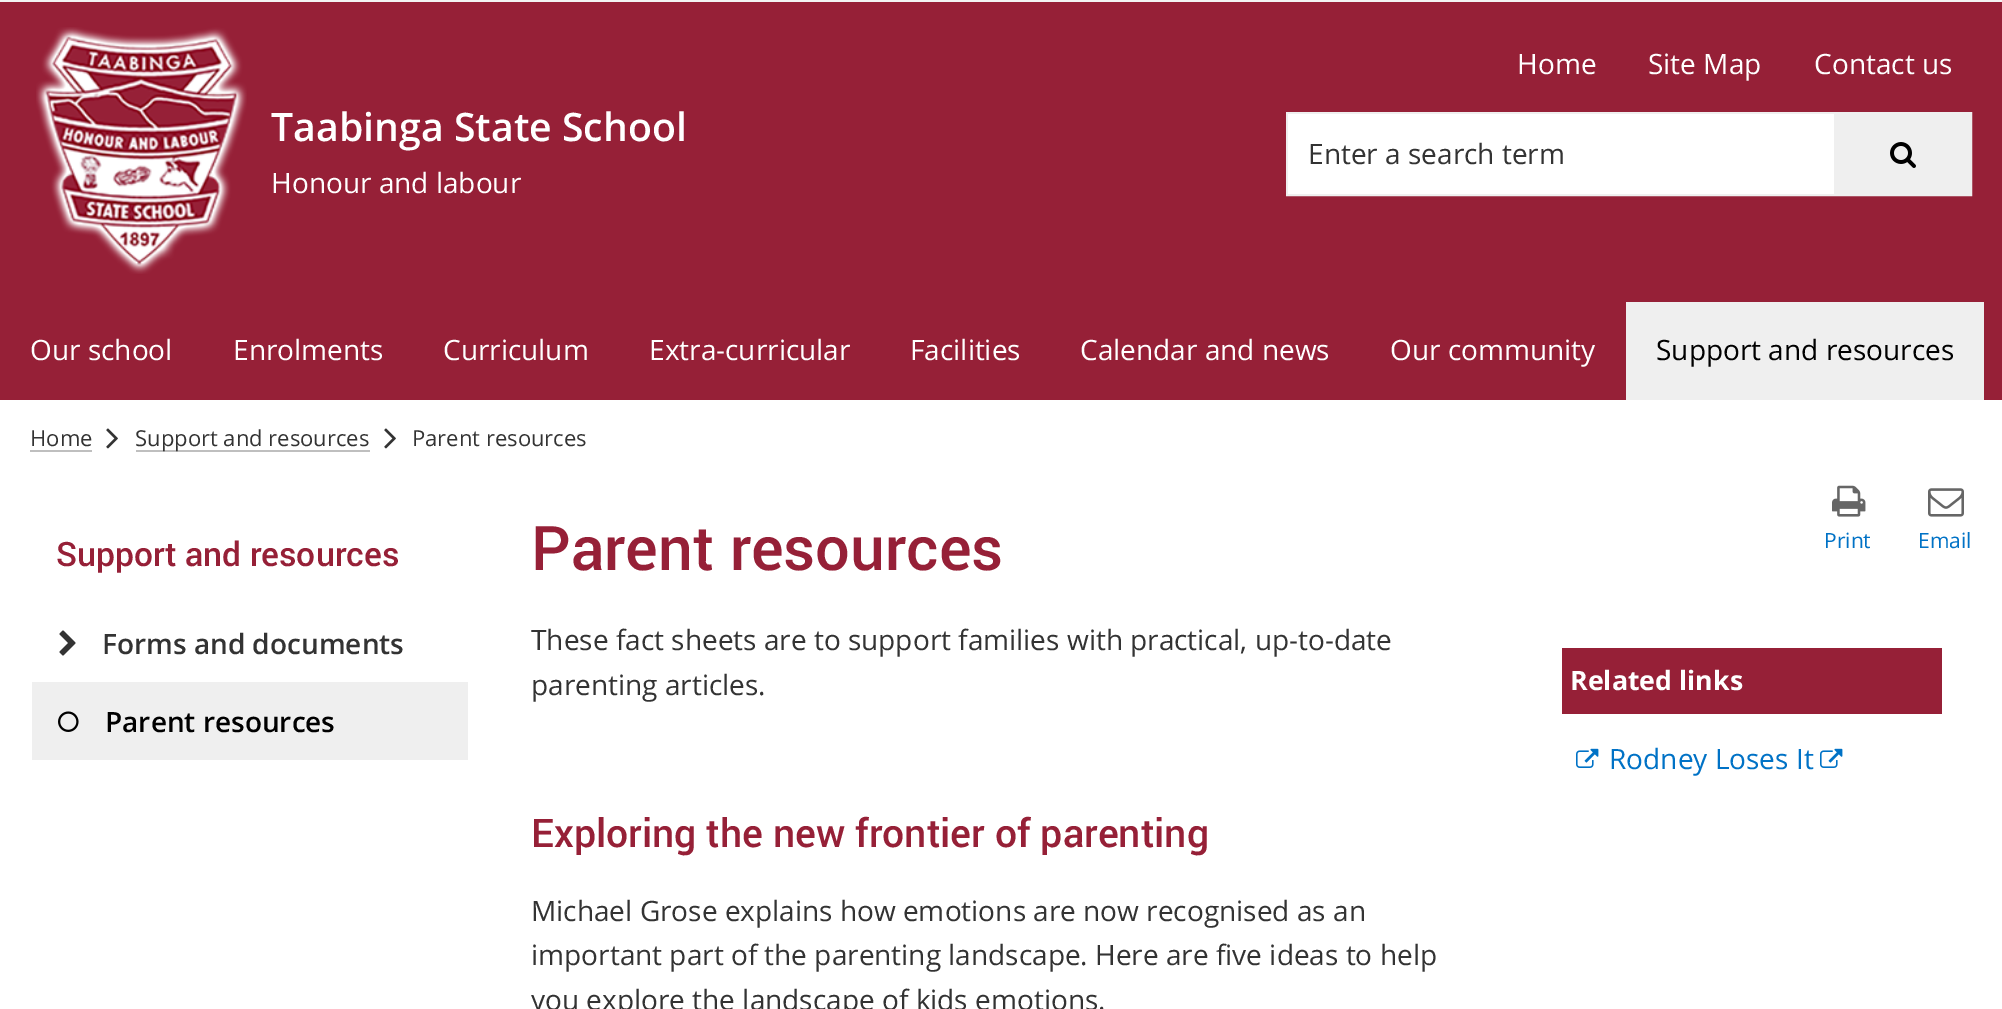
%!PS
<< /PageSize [2002 1009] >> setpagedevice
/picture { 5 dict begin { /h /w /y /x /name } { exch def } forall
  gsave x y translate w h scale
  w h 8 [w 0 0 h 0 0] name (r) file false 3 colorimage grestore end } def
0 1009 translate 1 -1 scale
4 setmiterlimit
1 setgray
0 0 2002 1009 rectfill
0.953 setgray
0 0 2002 2 rectfill
0.588 0.125 0.216 setrgbcolor
0 2 2002 398 rectfill
(img1.rgb) 36 27 211 247 picture
/OpenSans-SemiBold [39.25 0 0 -39.25 0 0] selectfont
1 setgray
271 141 moveto (Taabinga State School) show
/OpenSans-Regular [28 0 0 -28 0 0] selectfont
271 193 moveto (Honour and labour) show
1517 74 moveto (Home) show
1648 74 moveto (Site Map) show
1814 74 moveto (Contact us) show
0.937 setgray
2 setlinewidth
1287 113 684 82 rectstroke
1 setgray
1288 114 546 80 rectfill
0.2 setgray
1308 164 moveto (Enter a search term) show
0.937 setgray
1834 114 136 80 rectfill
(img2.rgb) 1890 142 26 26 picture
1 setgray
30 360 moveto (Our school) show
233 360 moveto (Enrolments) show
443 360 moveto (Curriculum) show
649 360 moveto (Extra-curricular) show
910 360 moveto (Facilities) show
1080 360 moveto (Calendar and news) show
1390 360 moveto (Our community) show
0.937 setgray
1626 302 358 98 rectfill
0 setgray
1656 360 moveto (Support and resources) show
/OpenSans-Regular [22 0 0 -22 0 0] selectfont
0.2 setgray
30 446 moveto (Home) show
0.749 setgray
30 450 62 2 rectfill
(img3.rgb) 106 428 12 21 picture
136 450 234 2 rectfill
0.2 setgray
135 446 moveto (Support and resources) show
(img3.rgb) 384 428 12 21 picture
412 446 moveto (Parent resources) show
/Roboto-Medium [33.6 0 0 -33.6 0 0] selectfont
0.588 0.125 0.216 setrgbcolor
56 566 moveto (Support and resources) show
(img4.rgb) 59 630 17 26 picture
/OpenSans-SemiBold [28 0 0 -28 0 0] selectfont
0.2 setgray
102 654 moveto (Forms and documents) show
0.937 setgray
32 682 436 78 rectfill
(img5.rgb) 58 711 21 21 picture
0 setgray
105 732 moveto (Parent resources) show
/Roboto-Medium [61.5 0 0 -61.5 0 0] selectfont
0.588 0.125 0.216 setrgbcolor
531 570 moveto (Parent resources) show
(img6.rgb) 1832 485 34 32 picture
/OpenSans-Regular [21 0 0 -21 0 0] selectfont
0 0.447 0.776 setrgbcolor
1824 548 moveto (Print) show
(img7.rgb) 1928 488 36 29 picture
1918 548 moveto (Email) show
/OpenSans-Regular [28 0 0 -28 0 0] selectfont
0.2 setgray
531 650 moveto (These fact sheets are to support families with practical, up-to-date) show
531 695 moveto (parenting articles.) show
/Roboto-Medium [39.25 0 0 -39.25 0 0] selectfont
0.588 0.125 0.216 setrgbcolor
531 847 moveto (Exploring the new frontier of parenting) show
/OpenSans-Regular [28 0 0 -28 0 0] selectfont
0.2 setgray
531 921 moveto (Michael Grose explains how emotions are now recognised as an) show
531 965 moveto (important part of the parenting landscape. Here are five ideas to help) show
531 1010 moveto (you explore the landscape of kids emotions.) show
0.588 0.125 0.216 setrgbcolor
1562 648 380 66 rectfill
/OpenSans-Bold [26.75 0 0 -26.75 0 0] selectfont
1 setgray
1570 690 moveto (Related links) show
(img8.rgb) 1576 748 23 20 picture
/OpenSans-Regular [28 0 0 -28 0 0] selectfont
0 0.447 0.776 setrgbcolor
1609 769 moveto (Rodney Loses It) show
(img8.rgb) 1820 748 23 20 picture
showpage
